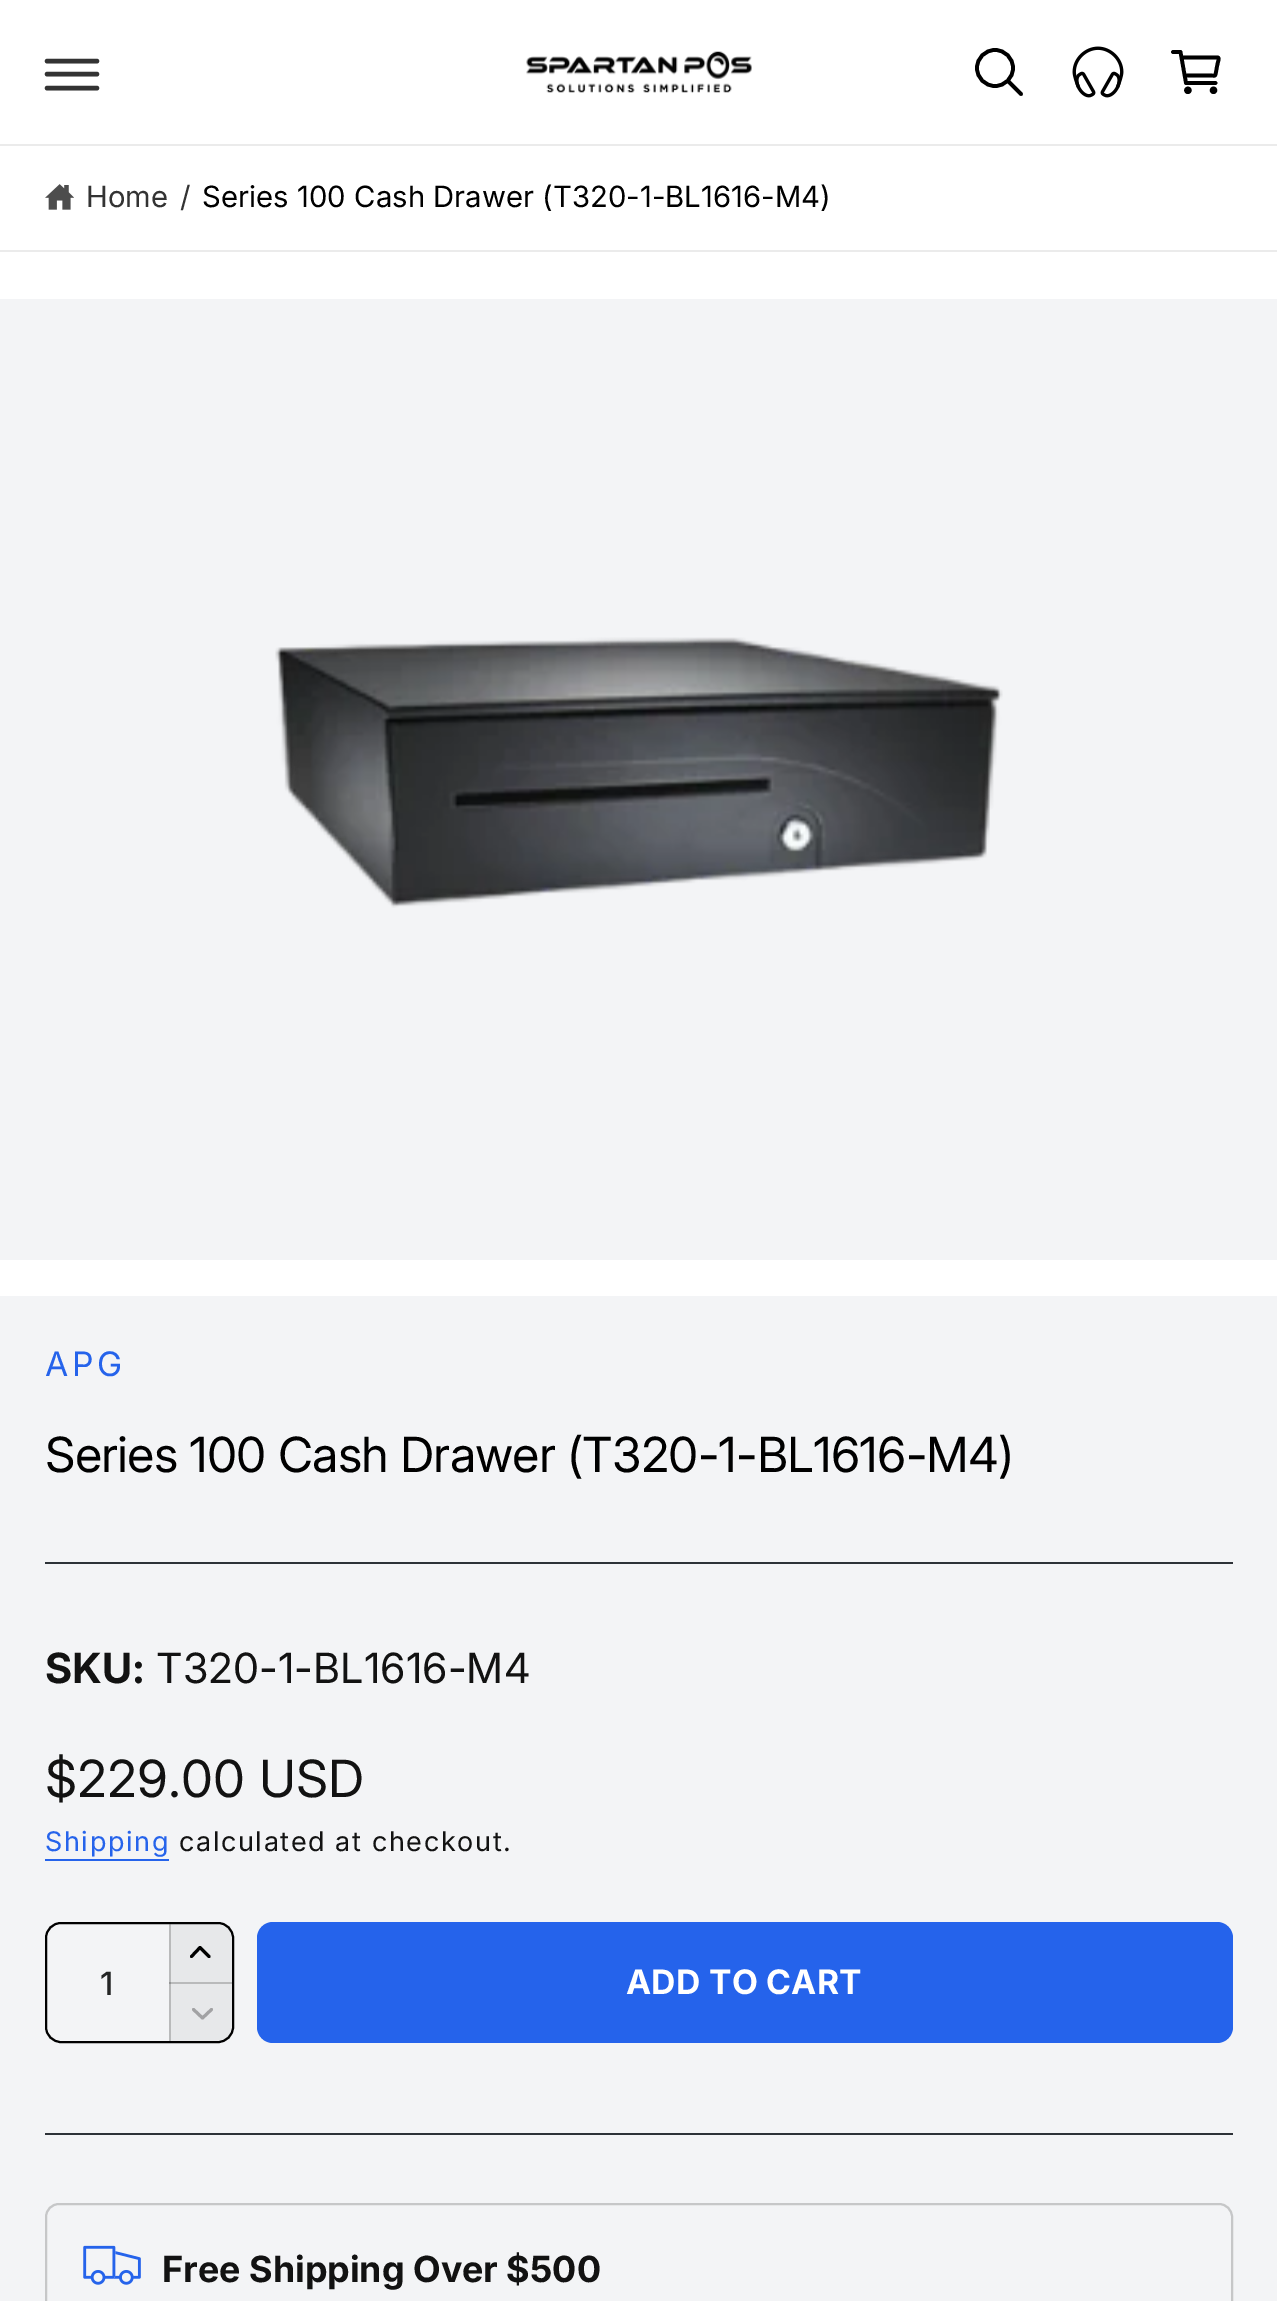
%!PS
<< /PageSize [1277 2301] >> setpagedevice
/roundrect { 5 dict begin { /r /h /w /y /x } { exch def } forall
  x r add y moveto x w add y 2 copy h add r arct x w add y h add x 1 index r arct
  x y h add x y r arct x y 2 copy exch w add exch r arct closepath end } def
/picture { 5 dict begin { /h /w /y /x /name } { exch def } forall
  gsave x y translate w h scale
  w h 8 [w 0 0 h 0 0] name (r) file false 3 colorimage grestore end } def
0 2301 translate 1 -1 scale
4 setmiterlimit
1 setgray
0 0 1277 2301 rectfill
0.2 setgray
4.5 setlinewidth
1 setlinecap
newpath 47 61 moveto 97 61 lineto 47 74 moveto 97 74 lineto 47 88 moveto 97 88 lineto stroke
(img1.rgb) 526 51 226 42 picture
0 setgray
3.7 setlinewidth
0 setlinecap
newpath 995 50 moveto 985 50 977 58 977 68 curveto 977 78 985 86 995 86 curveto 1005 86 1013 78 1013 68 curveto 1013 58 1005 50 995 50 curveto closepath stroke
1 setlinecap
newpath 1008.5 81.5 moveto 1021 94 lineto stroke
(img2.rgb) 1072 46 52 52 picture
0 setlinecap
newpath 1187.9 90.3 1.8 0 360 arc closepath stroke
newpath 1213.5 90.3 1.8 0 360 arc closepath stroke
1 setlinecap
1 setlinejoin
newpath 1173 52 moveto 1180.5 52 lineto 1186 83 lineto 1215.5 83 lineto 1186 75.5 moveto 1210 75.5 lineto 1215.5 75.5 1215 77 1216 72 curveto 1217 66.5 lineto 1219 56 1221 57.5 1212 57.5 curveto 1182.5 57.5 lineto stroke
0.922 setgray
0 144 1277 2 rectfill
0 250 1277 2 rectfill
(img3.rgb) 45 184 29 26 picture
/Inter-Regular [29.25 0 0 -29.25 0 0] selectfont
0.2 setgray
86 207 moveto 0.05 0 (Home) ashow
180 207 moveto 0.05 0 (/) ashow
0 setgray
202 207 moveto 0.05 0 (Series 100 Cash Drawer \(T320-1-BL1616-M4\)) ashow
0.953 0.957 0.965 setrgbcolor
0 299 1277 961 rectfill
(img4.rgb) 275 637 728 271 picture
0 1296 1277 1005 rectfill
/Inter-Regular [33.75 0 0 -33.75 0 0] selectfont
0.145 0.388 0.922 setrgbcolor
45 1376 moveto 3.5 0 (APG) ashow
/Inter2-Regular [48.4 0 0 -48.4 0 0] selectfont
0 setgray
45 1472 moveto -0.9 0 (Series 100 Cash Drawer \(T320-1-BL1616-M4\)) ashow
0.176 0.196 0.22 setrgbcolor
45 1562 1188 2 rectfill
/Inter-Bold [41.6 0 0 -41.6 0 0] selectfont
0.071 setgray
45 1683 moveto 0.05 0 (SKU:) ashow
/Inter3-Regular [41.6 0 0 -41.6 0 0] selectfont
156 1683 moveto 0.05 0 (T320-1-BL1616-M4) ashow
/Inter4-Regular [51.25 0 0 -51.25 0 0] selectfont
45 1797 moveto 0.05 0 ($229.00 USD) ashow
/Inter-Regular [27 0 0 -27 0 0] selectfont
0.145 0.388 0.922 setrgbcolor
45 1851 moveto 1.6 0 (Shipping) ashow
45 1859 124 2 rectfill
0.071 setgray
179 1851 moveto 1.6 0 (calculated at checkout.) ashow
0.906 0.91 0.918 setrgbcolor
newpath 169 1922 moveto 218 1922 lineto 225.5 1922 232 1928.5 232 1936 curveto 232 1985 lineto 169 1985 lineto closepath fill
0.725 0.729 0.733 setrgbcolor
169 1922 2 63 rectfill
169 1982 63 2 rectfill
0.58 0.584 0.588 setrgbcolor
169 1982 2 2 rectfill
0 setgray
3 setlinewidth
newpath 209 1956.5 moveto 200 1947.5 lineto 191.5 1956.5 lineto stroke
0.906 0.91 0.918 setrgbcolor
newpath 169 1985 moveto 232 1985 lineto 232 2029 lineto 232 2036.5 225.5 2043 218 2043 curveto 169 2043 lineto closepath fill
0.725 0.729 0.733 setrgbcolor
169 1985 2 58 rectfill
0.635 0.635 0.643 setrgbcolor
newpath 193.5 2009.5 moveto 202.5 2018 lineto 211.5 2009.5 lineto stroke
0.953 0.957 0.965 setrgbcolor
2 setlinewidth
0 setlinecap
0 setlinejoin
46 1923 187 119 15 roundrect stroke
0 setgray
46 1923 187 119 15 roundrect stroke
/Inter-Medium [32 0 0 -32 0 0] selectfont
0.141 0.145 0.145 setrgbcolor
100 1995 moveto (1) show
0.145 0.388 0.922 setrgbcolor
257 1922 976 121 16 roundrect fill
/Inter3-Bold [33.75 0 0 -33.75 0 0] selectfont
1 setgray
626 1994 moveto 0.25 0 (ADD TO CART) ashow
0.176 0.196 0.22 setrgbcolor
45 2133 1188 2 rectfill
0.776 0.78 0.784 setrgbcolor
46 2204 1186 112 13 roundrect stroke
(img5.rgb) 83 2245 58 40 picture
/Inter2-Bold [36 0 0 -36 0 0] selectfont
0.071 setgray
162 2282 moveto 0.05 0 (Free Shipping Over $500) ashow
showpage
